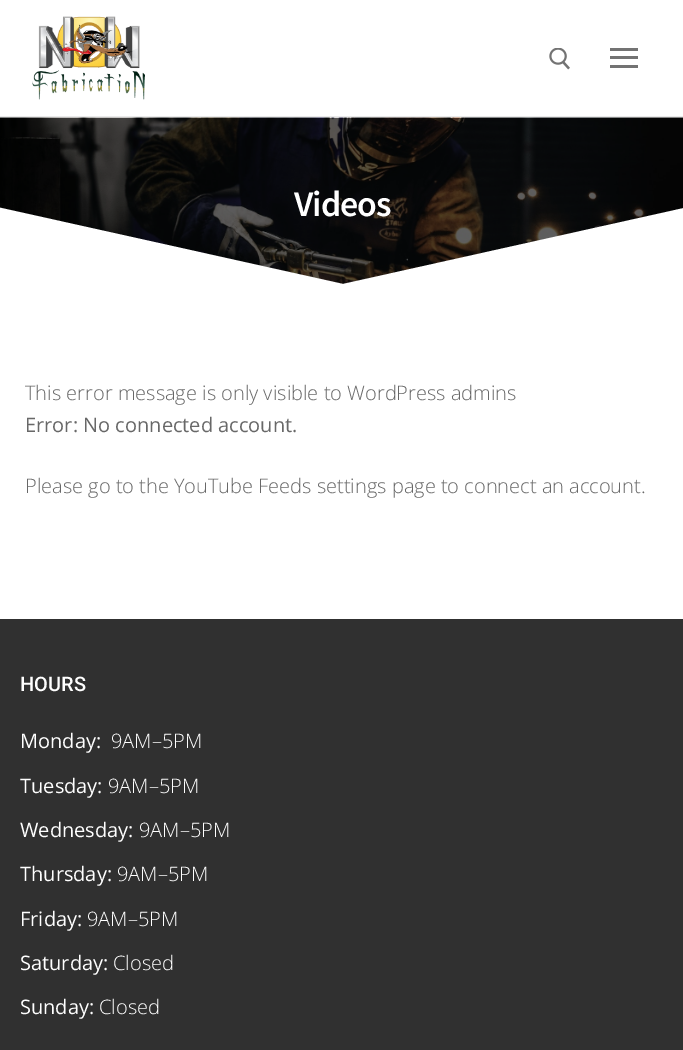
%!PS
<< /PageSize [683 1050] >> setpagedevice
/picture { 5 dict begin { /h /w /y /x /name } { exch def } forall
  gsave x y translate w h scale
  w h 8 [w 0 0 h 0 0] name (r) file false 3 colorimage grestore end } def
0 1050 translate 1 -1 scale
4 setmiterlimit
1 setgray
0 0 683 1050 rectfill
0.918 setgray
0 116 683 1 rectfill
(img1.rgb) 32 16 113 84 picture
(img2.rgb) 549 48 21 22 picture
0.451 setgray
610 56 28 3 rectfill
610 48 28 3 rectfill
610 65 28 3 rectfill
(img3.rgb) 0 117 683 167 picture
/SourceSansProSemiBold-SemiBold [36 0 0 -36 0 0] selectfont
1 setgray
294 216 moveto -1 0 (Videos) ashow
newpath 343 284 moveto -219 159 lineto -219 291 lineto 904 291 lineto 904 159 lineto closepath fill
/OpenSans-Light [20 0 0 -20 0 0] selectfont
0.408 setgray
25 400 moveto (This error message is only visible to WordPress admins) show
/OpenSans-Regular [20 0 0 -20 0 0] selectfont
25 432 moveto (Error: No connected account.) show
/OpenSans-Light [20 0 0 -20 0 0] selectfont
25 493 moveto (Please go to the YouTube Feeds settings page to connect an account.) show
0.188 setgray
0 619 683 431 rectfill
/Roboto-Medium [20 0 0 -20 0 0] selectfont
1 setgray
20 691 moveto (HOURS) show
/OpenSans-Regular [20 0 0 -20 0 0] selectfont
20 748 moveto (Monday:) show
/OpenSans-Light [20 0 0 -20 0 0] selectfont
111 748 moveto (9AM–5PM) show
/OpenSans-Regular [20 0 0 -20 0 0] selectfont
20 793 moveto (Tuesday:) show
/OpenSans-Light [20 0 0 -20 0 0] selectfont
108 793 moveto (9AM–5PM) show
/OpenSans-Regular [20 0 0 -20 0 0] selectfont
20 837 moveto (Wednesday:) show
/OpenSans-Light [20 0 0 -20 0 0] selectfont
139 837 moveto (9AM–5PM) show
/OpenSans-Regular [20 0 0 -20 0 0] selectfont
20 881 moveto (Thursday:) show
/OpenSans-Light [20 0 0 -20 0 0] selectfont
117 881 moveto (9AM–5PM) show
/OpenSans-Regular [20 0 0 -20 0 0] selectfont
20 926 moveto (Friday:) show
/OpenSans-Light [20 0 0 -20 0 0] selectfont
87 926 moveto (9AM–5PM) show
/OpenSans-Regular [20 0 0 -20 0 0] selectfont
20 970 moveto (Saturday:) show
/OpenSans-Light [20 0 0 -20 0 0] selectfont
113 970 moveto (Closed) show
/OpenSans-Regular [20 0 0 -20 0 0] selectfont
20 1014 moveto (Sunday:) show
/OpenSans-Light [20 0 0 -20 0 0] selectfont
99 1014 moveto (Closed) show
showpage
